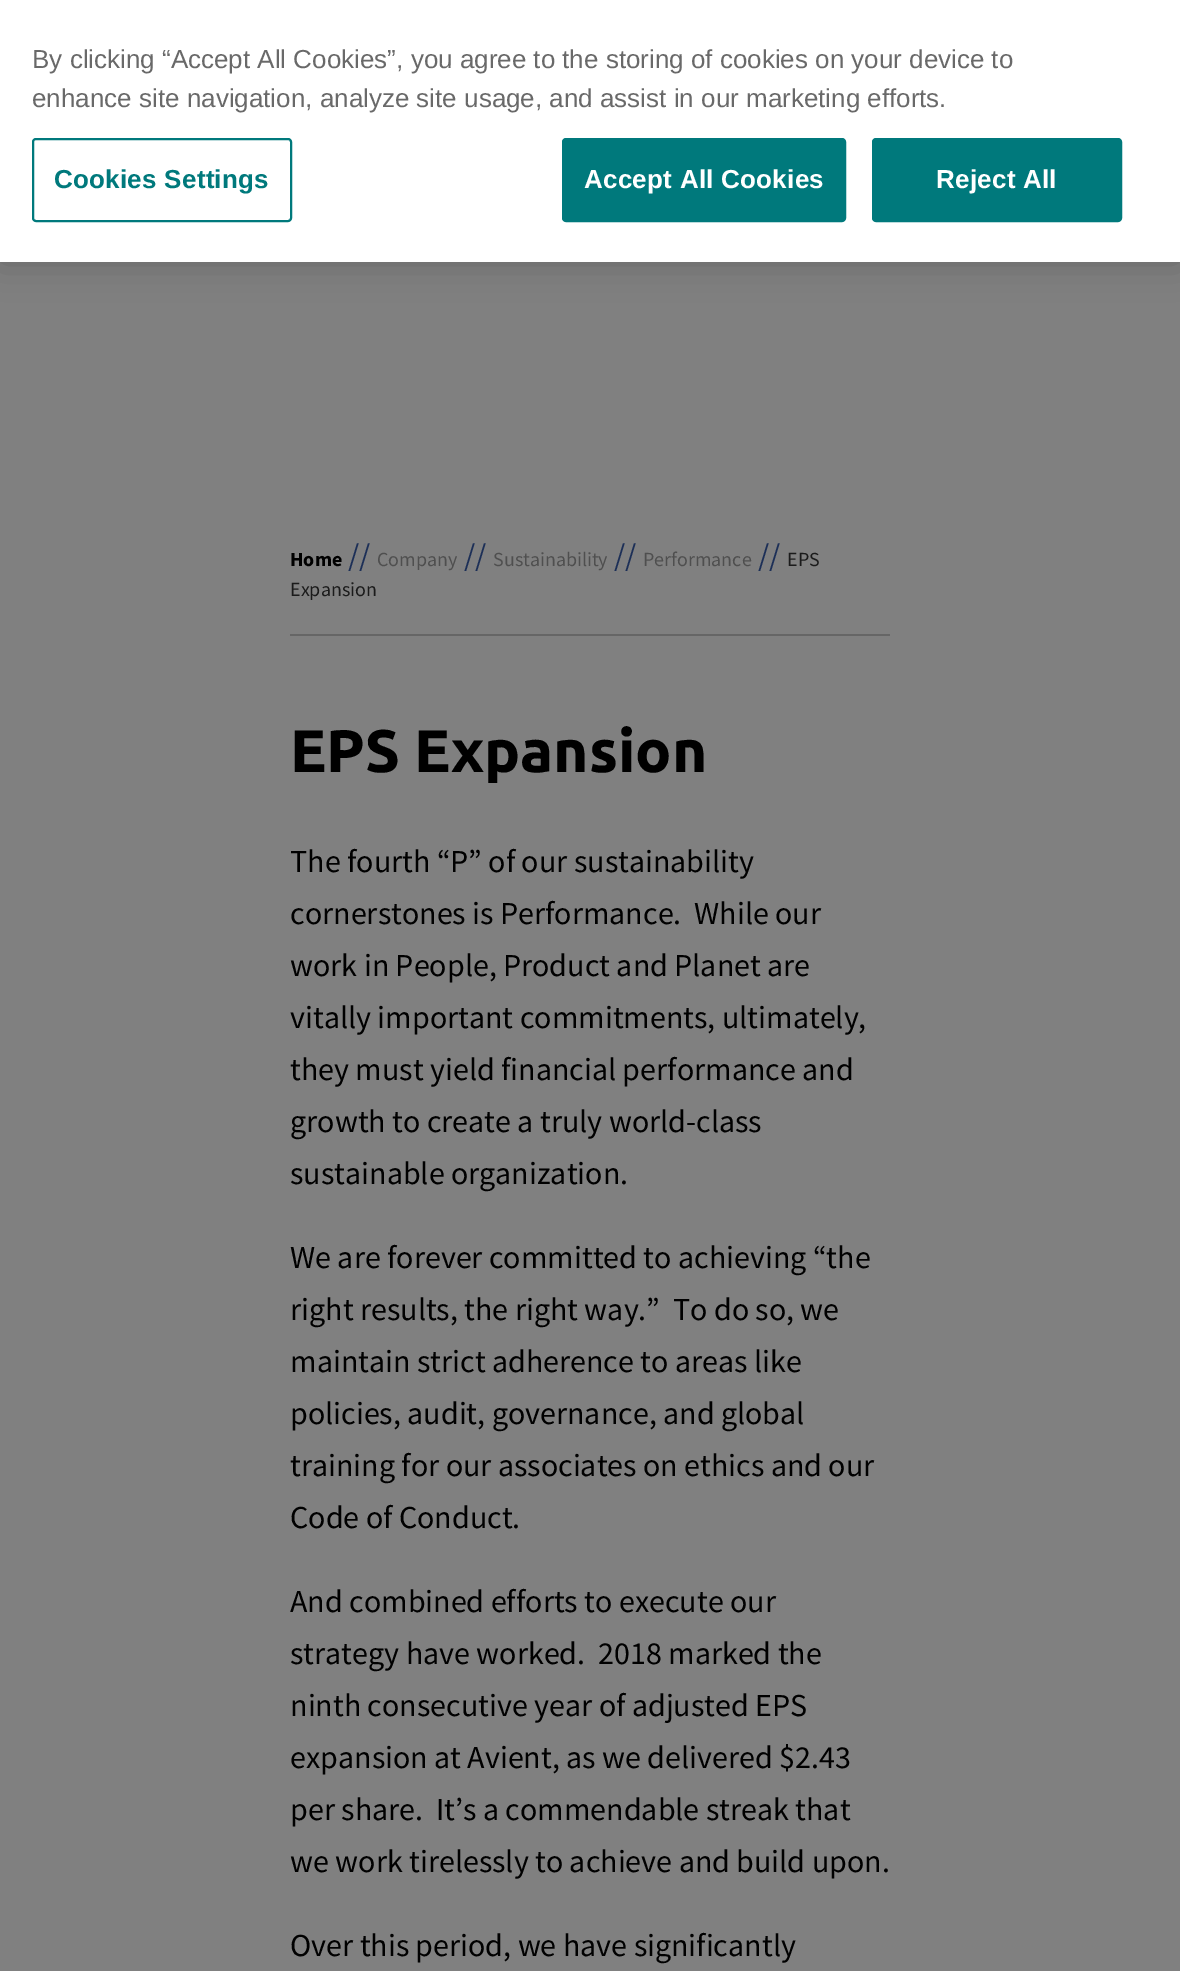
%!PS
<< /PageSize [1180 1971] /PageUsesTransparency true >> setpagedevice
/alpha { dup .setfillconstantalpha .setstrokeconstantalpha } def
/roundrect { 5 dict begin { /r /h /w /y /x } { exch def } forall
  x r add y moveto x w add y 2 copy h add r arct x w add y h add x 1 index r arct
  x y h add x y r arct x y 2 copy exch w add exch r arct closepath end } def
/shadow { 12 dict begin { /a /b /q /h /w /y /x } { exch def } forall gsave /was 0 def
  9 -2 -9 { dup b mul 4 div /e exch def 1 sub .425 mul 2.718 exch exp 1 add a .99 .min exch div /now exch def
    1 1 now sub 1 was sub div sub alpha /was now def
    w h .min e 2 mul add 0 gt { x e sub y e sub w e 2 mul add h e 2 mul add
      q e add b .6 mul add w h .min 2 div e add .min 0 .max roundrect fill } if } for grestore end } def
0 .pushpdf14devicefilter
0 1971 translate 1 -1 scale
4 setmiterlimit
0.502 setgray
0 0 1180 1971 rectfill
0 setgray
0 0 1180 262 0 18 0.2 shadow
1 setgray
0 0 1180 262 rectfill
/LiberationSans-Regular [26 0 0 -26 0 0] selectfont
0.412 setgray
32 68 moveto (By clicking “Accept All Cookies”, you agree to the storing of cookies on your device to) show
32 107 moveto (enhance site navigation, analyze site usage, and assist in our marketing efforts.) show
0 0.475 0.486 setrgbcolor
2 setlinewidth
33 139 258 82 3 roundrect stroke
/LiberationSans-Bold [26 0 0 -26 0 0] selectfont
54 188 moveto 0.25 0 (Cookies Settings) ashow
563 139 282 82 3 roundrect gsave fill grestore
stroke
1 setgray
584 188 moveto 0.25 0 (Accept All Cookies) ashow
0 0.475 0.486 setrgbcolor
873 139 248 82 3 roundrect gsave fill grestore
stroke
1 setgray
936 188 moveto 0.25 0 (Reject All) ashow
0.4 setgray
290 634 600 2 rectfill
/SourceSansPro-Bold [20 0 0 -20 0 0] selectfont
0 setgray
290 566 moveto (Home) show
/SourceSansPro-Regular [32 0 0 -32 0 0] selectfont
0.11 0.184 0.341 setrgbcolor
348 566 moveto (//) show
/SourceSansPro-Regular [20 0 0 -20 0 0] selectfont
0.31 setgray
377 566 moveto (Company) show
/SourceSansPro-Regular [32 0 0 -32 0 0] selectfont
0.11 0.184 0.341 setrgbcolor
464 566 moveto (//) show
/SourceSansPro-Regular [20 0 0 -20 0 0] selectfont
0.31 setgray
493 566 moveto (Sustainability) show
/SourceSansPro-Regular [32 0 0 -32 0 0] selectfont
0.11 0.184 0.341 setrgbcolor
614 566 moveto (//) show
/SourceSansPro-Regular [20 0 0 -20 0 0] selectfont
0.31 setgray
643 566 moveto (Performance) show
/SourceSansPro-Regular [32 0 0 -32 0 0] selectfont
0.11 0.184 0.341 setrgbcolor
758 566 moveto (//) show
/SourceSansPro-Regular [20 0 0 -20 0 0] selectfont
0.106 setgray
787 566 moveto (EPS) show
290 596 moveto (Expansion) show
/Ubuntu-Bold [60 0 0 -60 0 0] selectfont
0 setgray
290 772 moveto (EPS Expansion) show
/SourceSansPro-Regular [32 0 0 -32 0 0] selectfont
290 872 moveto (The fourth “P” of our sustainability) show
290 924 moveto (cornerstones is Performance.  While our) show
290 976 moveto (work in People, Product and Planet are) show
290 1028 moveto (vitally important commitments, ultimately,) show
290 1080 moveto (they must yield financial performance and) show
290 1132 moveto (growth to create a truly world-class) show
290 1184 moveto (sustainable organization.) show
290 1268 moveto (We are forever committed to achieving “the) show
290 1320 moveto (right results, the right way.”  To do so, we) show
290 1372 moveto (maintain strict adherence to areas like) show
290 1424 moveto (policies, audit, governance, and global) show
290 1476 moveto (training for our associates on ethics and our) show
290 1528 moveto (Code of Conduct.) show
290 1612 moveto (And combined efforts to execute our) show
290 1664 moveto (strategy have worked.  2018 marked the) show
290 1716 moveto (ninth consecutive year of adjusted EPS) show
290 1768 moveto (expansion at Avient, as we delivered $2.43) show
290 1820 moveto (per share.  It’s a commendable streak that) show
290 1872 moveto (we work tirelessly to achieve and build upon.) show
290 1956 moveto (Over this period, we have significantly) show
.poppdf14devicefilter showpage
